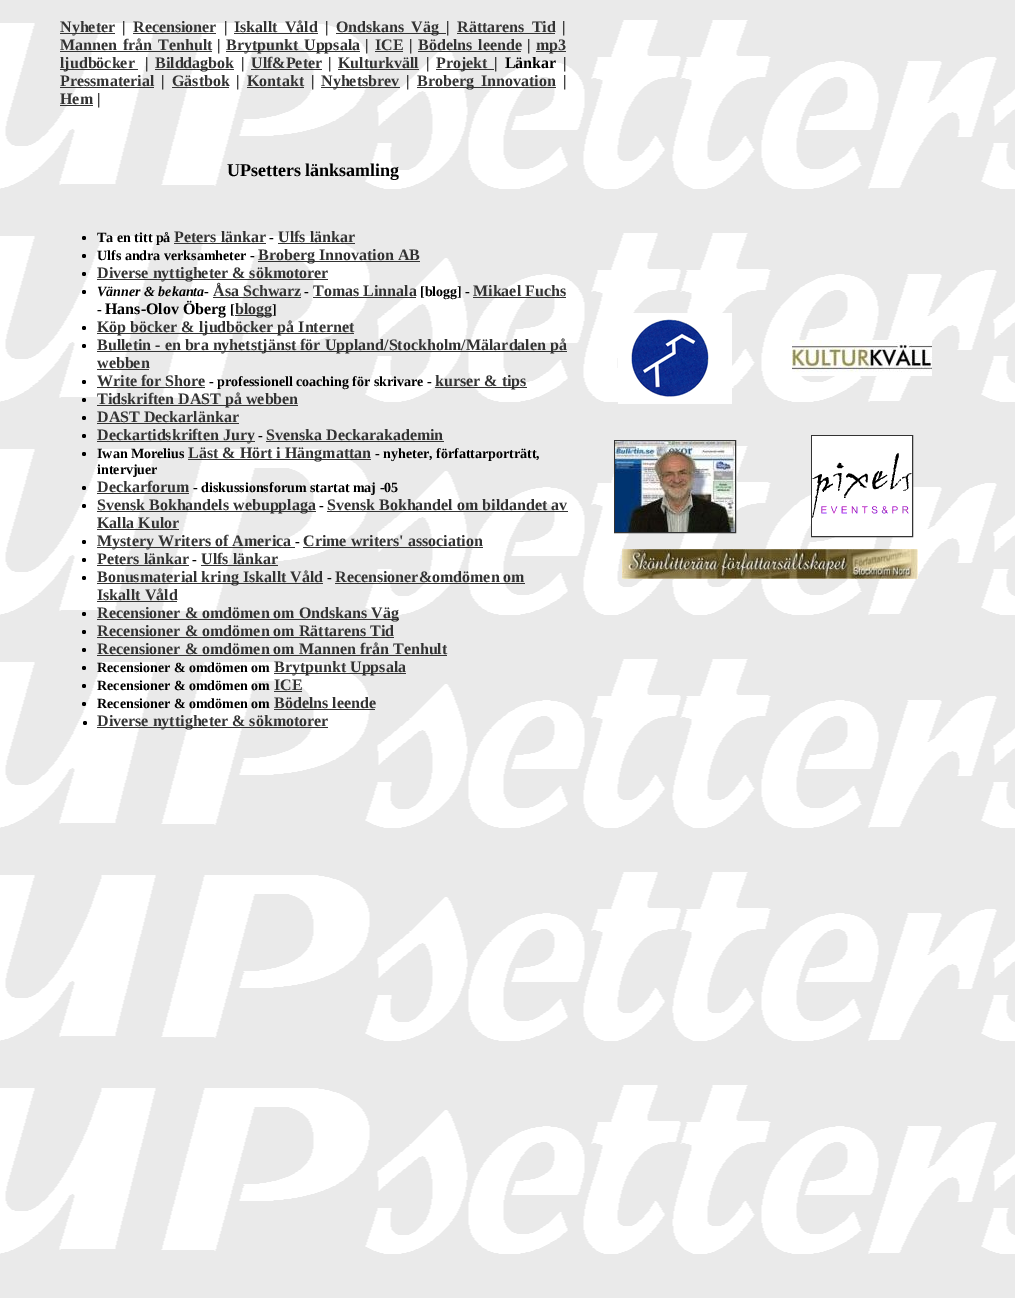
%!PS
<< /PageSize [1015 1298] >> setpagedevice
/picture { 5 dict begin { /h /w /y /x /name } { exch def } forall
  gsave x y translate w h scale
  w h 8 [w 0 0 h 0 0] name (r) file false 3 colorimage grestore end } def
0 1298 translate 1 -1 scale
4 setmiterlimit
0.918 setgray
0 0 1015 1298 rectfill
(img1.rgb) 0 20 1015 1234 picture
0.2 setgray
60 33 55 1 rectfill
/LiberationSerif-Bold [16 0 0 -16 0 0] selectfont
60 32 moveto (Nyheter) show
0 setgray
122 32 moveto (|) show
0.2 setgray
133 32 moveto (Recensioner) show
133 33 83 1 rectfill
0 setgray
224 32 moveto (|) show
0.2 setgray
234 32 moveto 3 0 32 (Iskallt Våld) widthshow
234 33 84 1 rectfill
0 setgray
325 32 moveto (|) show
0.2 setgray
336 33 110 1 rectfill
336 32 moveto 3 0 32 (Ondskans Väg) widthshow
0 setgray
446 32 moveto (|) show
0.2 setgray
457 32 moveto 3 0 32 (Rättarens Tid) widthshow
457 33 98 1 rectfill
0 setgray
562 32 moveto (|) show
0.2 setgray
60 50 moveto 2 0 32 (Mannen från Tenhult) widthshow
60 51 152 1 rectfill
0 setgray
217 50 moveto (|) show
0.2 setgray
226 51 134 1 rectfill
226 50 moveto 2 0 32 (Brytpunkt Uppsala) widthshow
0 setgray
365 50 moveto (|) show
0.2 setgray
375 50 moveto (ICE) show
375 51 28 1 rectfill
0 setgray
409 50 moveto (|) show
0.2 setgray
418 50 moveto 2 0 32 (Bödelns leende) widthshow
418 51 103 1 rectfill
0 setgray
527 50 moveto (|) show
0.2 setgray
536 51 30 1 rectfill
536 50 moveto (mp3) show
60 69 78 1 rectfill
60 68 moveto (ljudböcker) show
0 setgray
145 68 moveto (|) show
0.2 setgray
155 69 79 1 rectfill
155 68 moveto (Bilddagbok) show
0 setgray
241 68 moveto (|) show
0.2 setgray
251 68 moveto (Ulf&Peter) show
251 69 71 1 rectfill
0 setgray
328 68 moveto (|) show
0.2 setgray
338 68 moveto (Kulturkväll) show
338 69 81 1 rectfill
0 setgray
426 68 moveto (|) show
0.2 setgray
436 69 58 1 rectfill
436 68 moveto (Projekt) show
0 setgray
494 68 moveto 3 0 32 (| Länkar |) widthshow
0.2 setgray
60 86 moveto (Pressmaterial) show
60 87 94 1 rectfill
0 setgray
161 86 moveto (|) show
0.2 setgray
172 86 moveto (Gästbok) show
172 87 57 1 rectfill
0 setgray
236 86 moveto (|) show
0.2 setgray
247 86 moveto (Kontakt) show
247 87 57 1 rectfill
0 setgray
311 86 moveto (|) show
0.2 setgray
321 87 79 1 rectfill
321 86 moveto (Nyhetsbrev) show
0 setgray
406 86 moveto (|) show
0.2 setgray
417 87 139 1 rectfill
417 86 moveto 3 0 32 (Broberg Innovation) widthshow
0 setgray
563 86 moveto (|) show
0.2 setgray
60 104 moveto (Hem) show
60 105 33 1 rectfill
0 setgray
97 104 moveto (|) show
/LiberationSerif-Bold [18 0 0 -18 0 0] selectfont
227 176 moveto (UPsetters länksamling) show
newpath 84 238 2 0 360 arc closepath fill
/LiberationSerif-Bold [14 0 0 -14 0 0] selectfont
97 242 moveto (Ta en titt på) show
/LiberationSerif-Bold [16 0 0 -16 0 0] selectfont
0.2 setgray
174 242 moveto (Peters länkar) show
174 243 92 1 rectfill
/LiberationSerif-Bold [14 0 0 -14 0 0] selectfont
0 setgray
269 242 moveto (-) show
/LiberationSerif-Bold [16 0 0 -16 0 0] selectfont
0.2 setgray
278 242 moveto (Ulfs länkar) show
278 243 77 1 rectfill
0 setgray
newpath 84 256 2 0 360 arc closepath fill
/LiberationSerif-Bold [14 0 0 -14 0 0] selectfont
97 260 moveto (Ulfs andra verksamheter -) show
0.2 setgray
258 261 162 1 rectfill
/LiberationSerif-Bold [16 0 0 -16 0 0] selectfont
258 260 moveto (Broberg Innovation AB) show
0 setgray
newpath 84 274 2 0 360 arc closepath fill
0.2 setgray
97 279 231 1 rectfill
97 278 moveto (Diverse nyttigheter & sökmotorer) show
0 setgray
newpath 84 292 2 0 360 arc closepath fill
/LiberationSerif-BoldItalic [14 0 0 -14 0 0] selectfont
97 296 moveto (Vänner & bekanta) show
/LiberationSerif-Bold [14 0 0 -14 0 0] selectfont
204 296 moveto (-) show
/LiberationSerif-Bold [16 0 0 -16 0 0] selectfont
0.2 setgray
213 296 moveto (Åsa Schwarz) show
213 297 88 1 rectfill
/LiberationSerif-Bold [14 0 0 -14 0 0] selectfont
0 setgray
304 296 moveto (-) show
/LiberationSerif-Bold [16 0 0 -16 0 0] selectfont
0.2 setgray
313 296 moveto (Tomas Linnala) show
313 297 103 1 rectfill
/LiberationSerif-Bold [14 0 0 -14 0 0] selectfont
0 setgray
420 296 moveto ([blogg] -) show
/LiberationSerif-Bold [16 0 0 -16 0 0] selectfont
0.2 setgray
473 296 moveto (Mikael Fuchs) show
473 297 93 1 rectfill
/LiberationSerif-Bold [14 0 0 -14 0 0] selectfont
0 setgray
97 314 moveto (-) show
/LiberationSerif-Bold [16 0 0 -16 0 0] selectfont
105 314 moveto (Hans-Olov Öberg) show
/LiberationSerif-Bold [14 0 0 -14 0 0] selectfont
230 314 moveto ([) show
0.2 setgray
235 315 37 1 rectfill
/LiberationSerif-Bold [16 0 0 -16 0 0] selectfont
235 314 moveto (blogg) show
/LiberationSerif-Bold [14 0 0 -14 0 0] selectfont
0 setgray
272 314 moveto (]) show
newpath 84 328 2 0 360 arc closepath fill
0.2 setgray
97 333 257 1 rectfill
/LiberationSerif-Bold [16 0 0 -16 0 0] selectfont
97 332 moveto (Köp böcker & ljudböcker på Internet) show
0 setgray
newpath 84 346 2 0 360 arc closepath fill
0.2 setgray
97 351 470 1 rectfill
97 350 moveto (Bulletin - en bra nyhetstjänst för Uppland/Stockholm/Mälardalen på) show
97 368 moveto (webben) show
97 369 52 1 rectfill
0 setgray
newpath 84 382 2 0 360 arc closepath fill
0.2 setgray
97 386 moveto (Write for Shore) show
97 387 108 1 rectfill
/LiberationSerif-Bold [14 0 0 -14 0 0] selectfont
0 setgray
209 386 moveto (- professionell coaching för skrivare -) show
0.2 setgray
435 387 92 1 rectfill
/LiberationSerif-Bold [16 0 0 -16 0 0] selectfont
435 386 moveto (kurser & tips) show
0 setgray
newpath 84 400 2 0 360 arc closepath fill
0.2 setgray
97 405 201 1 rectfill
97 404 moveto (Tidskriften DAST på webben) show
0 setgray
newpath 84 418 2 0 360 arc closepath fill
0.2 setgray
97 422 moveto (DAST Deckarlänkar) show
97 423 142 1 rectfill
0 setgray
newpath 84 436 2 0 360 arc closepath fill
0.2 setgray
97 441 158 1 rectfill
97 440 moveto (Deckartidskriften Jury) show
/LiberationSerif-Bold [14 0 0 -14 0 0] selectfont
0 setgray
258 440 moveto (-) show
/LiberationSerif-Bold [16 0 0 -16 0 0] selectfont
0.2 setgray
266 440 moveto (Svenska Deckarakademin) show
266 441 178 1 rectfill
0 setgray
newpath 84 454 2 0 360 arc closepath fill
/LiberationSerif-Bold [14 0 0 -14 0 0] selectfont
97 458 moveto (Iwan Morelius) show
0.2 setgray
188 459 183 1 rectfill
/LiberationSerif-Bold [16 0 0 -16 0 0] selectfont
188 458 moveto (Läst & Hört i Hängmattan) show
/LiberationSerif-Bold [14 0 0 -14 0 0] selectfont
0 setgray
375 458 moveto (- nyheter, författarporträtt,) show
97 474 moveto (intervjuer) show
newpath 84 488 2 0 360 arc closepath fill
/LiberationSerif-Bold [16 0 0 -16 0 0] selectfont
0.2 setgray
97 492 moveto (Deckarforum) show
97 493 92 1 rectfill
/LiberationSerif-Bold [14 0 0 -14 0 0] selectfont
0 setgray
193 492 moveto (- diskussionsforum startat maj -05) show
newpath 84 506 2 0 360 arc closepath fill
0.2 setgray
97 511 219 1 rectfill
/LiberationSerif-Bold [16 0 0 -16 0 0] selectfont
97 510 moveto (Svensk Bokhandels webupplaga) show
/LiberationSerif-Bold [14 0 0 -14 0 0] selectfont
0 setgray
319 510 moveto (-) show
/LiberationSerif-Bold [16 0 0 -16 0 0] selectfont
0.2 setgray
327 510 moveto (Svensk Bokhandel om bildandet av) show
327 511 241 1 rectfill
97 528 moveto (Kalla Kulor) show
97 529 82 1 rectfill
0 setgray
newpath 84 542 2 0 360 arc closepath fill
0.2 setgray
97 547 198 1 rectfill
97 546 moveto (Mystery Writers of America) show
/LiberationSerif-Bold [14 0 0 -14 0 0] selectfont
0 setgray
295 546 moveto (-) show
/LiberationSerif-Bold [16 0 0 -16 0 0] selectfont
0.2 setgray
303 546 moveto (Crime writers' association) show
303 547 180 1 rectfill
0 setgray
newpath 84 560 2 0 360 arc closepath fill
0.2 setgray
97 564 moveto (Peters länkar) show
97 565 92 1 rectfill
/LiberationSerif-Bold [14 0 0 -14 0 0] selectfont
0 setgray
192 564 moveto (-) show
/LiberationSerif-Bold [16 0 0 -16 0 0] selectfont
0.2 setgray
201 564 moveto (Ulfs länkar) show
201 565 77 1 rectfill
0 setgray
newpath 84 578 2 0 360 arc closepath fill
0.2 setgray
97 583 226 1 rectfill
97 582 moveto (Bonusmaterial kring Iskallt Våld) show
/LiberationSerif-Bold [14 0 0 -14 0 0] selectfont
0 setgray
327 582 moveto (-) show
/LiberationSerif-Bold [16 0 0 -16 0 0] selectfont
0.2 setgray
335 582 moveto (Recensioner&omdömen om) show
335 583 190 1 rectfill
97 600 moveto (Iskallt Våld) show
97 601 80 1 rectfill
0 setgray
newpath 84 614 2 0 360 arc closepath fill
0.2 setgray
97 619 302 1 rectfill
97 618 moveto (Recensioner & omdömen om Ondskans Väg) show
0 setgray
newpath 84 632 2 0 360 arc closepath fill
0.2 setgray
97 636 moveto (Recensioner & omdömen om Rättarens Tid) show
97 637 297 1 rectfill
0 setgray
newpath 84 650 2 0 360 arc closepath fill
0.2 setgray
97 654 moveto (Recensioner & omdömen om Mannen från Tenhult) show
97 655 350 1 rectfill
0 setgray
newpath 84 668 2 0 360 arc closepath fill
/LiberationSerif-Bold [14 0 0 -14 0 0] selectfont
97 672 moveto (Recensioner & omdömen om) show
0.2 setgray
274 673 132 1 rectfill
/LiberationSerif-Bold [16 0 0 -16 0 0] selectfont
274 672 moveto (Brytpunkt Uppsala) show
0 setgray
newpath 84 686 2 0 360 arc closepath fill
/LiberationSerif-Bold [14 0 0 -14 0 0] selectfont
97 690 moveto (Recensioner & omdömen om) show
/LiberationSerif-Bold [16 0 0 -16 0 0] selectfont
0.2 setgray
274 690 moveto (ICE) show
274 691 28 1 rectfill
0 setgray
newpath 84 704 2 0 360 arc closepath fill
/LiberationSerif-Bold [14 0 0 -14 0 0] selectfont
97 708 moveto (Recensioner & omdömen om) show
/LiberationSerif-Bold [16 0 0 -16 0 0] selectfont
0.2 setgray
274 708 moveto (Bödelns leende) show
274 709 101 1 rectfill
0 setgray
newpath 85 723 2 0 360 arc closepath fill
0.2 setgray
97 727 231 1 rectfill
97 726 moveto (Diverse nyttigheter & sökmotorer) show
(img2.rgb) 618 313 114 91 picture
(img3.rgb) 792 340 140 36 picture
614.5 440.5 121 92 rectstroke
(img4.rgb) 615 441 120 91 picture
811.5 435.5 101 101 rectstroke
(img5.rgb) 812 436 100 100 picture
(img6.rgb) 622 549 296 30 picture
showpage
